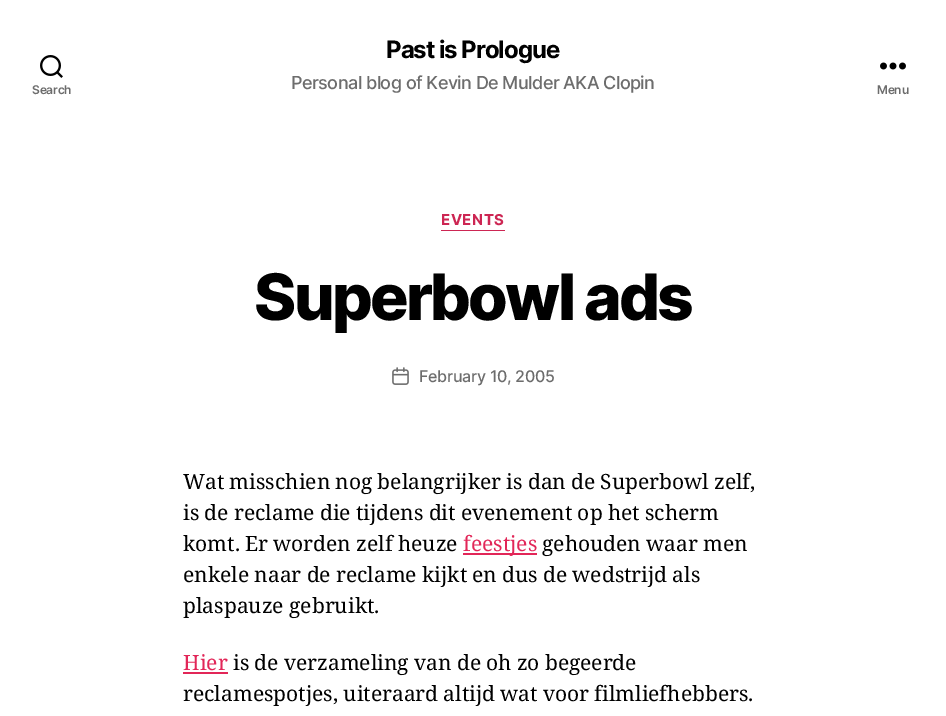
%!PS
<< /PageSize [946 716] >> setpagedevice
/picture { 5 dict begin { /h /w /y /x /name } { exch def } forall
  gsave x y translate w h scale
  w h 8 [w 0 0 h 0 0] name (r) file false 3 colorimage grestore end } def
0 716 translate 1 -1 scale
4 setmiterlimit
1 setgray
0 0 946 716 rectfill
(img1.rgb) 40 55 23 23 picture
/Inter-SemiBold [12 0 0 -12 0 0] selectfont
0.427 setgray
32 94 moveto -0.25 0 (Search) ashow
/Inter-Bold [24 0 0 -24 0 0] selectfont
0 setgray
386 58 moveto -1 0 (Past is Prologue) ashow
/Inter-Medium [18 0 0 -18 0 0] selectfont
0.427 setgray
291 89 moveto -0.55 0 (Personal blog of Kevin De Mulder AKA Clopin) ashow
(img2.rgb) 880 62 26 8 picture
/Inter-SemiBold [12 0 0 -12 0 0] selectfont
877 94 moveto -0.25 0 (Menu) ashow
0.804 0.149 0.325 setrgbcolor
441 230 64 1 rectfill
/Inter-Bold [15 0 0 -15 0 0] selectfont
441 225 moveto 0.5 0 (EVENTS) ashow
/Inter-ExtraBold [64 0 0 -64 0 0] selectfont
0 setgray
254 320 moveto -2.7 0 (Superbowl ads) ashow
(img3.rgb) 392 367 17 18 picture
/Inter-Medium [16 0 0 -16 0 0] selectfont
0.427 setgray
419 382 moveto -0.25 0 (February 10, 2005) ashow
/NotoSerif-Regular [21 0 0 -21 0 0] selectfont
0 setgray
183 489 moveto -0.25 0 32 (Wat misschien nog belangrijker is dan de Superbowl zelf,) widthshow
183 520 moveto -0.25 0 32 (is de reclame die tijdens dit evenement op het scherm) widthshow
183 551 moveto -0.25 0 32 (komt. Er worden zelf heuze) widthshow
0.886 0.149 0.345 setrgbcolor
463 553 74 2 rectfill
463 551 moveto (feestjes) show
0 setgray
542 551 moveto -0.25 0 32 (gehouden waar men) widthshow
183 582 moveto -0.25 0 32 (enkele naar de reclame kijkt en dus de wedstrijd als) widthshow
183 613 moveto (plaspauze gebruikt.) show
0.886 0.149 0.345 setrgbcolor
183 670 moveto (Hier) show
183 672 45 2 rectfill
0 setgray
233 670 moveto -0.25 0 32 (is de verzameling van de oh zo begeerde) widthshow
183 701 moveto -0.25 0 32 (reclamespotjes, uiteraard altijd wat voor filmliefhebbers.) widthshow
showpage
